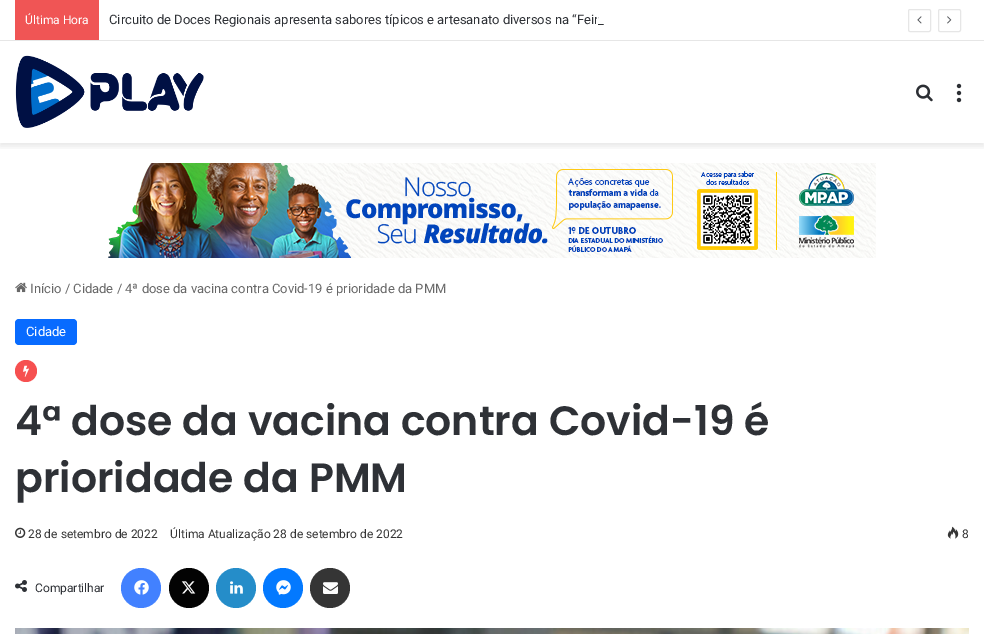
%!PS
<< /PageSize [984 634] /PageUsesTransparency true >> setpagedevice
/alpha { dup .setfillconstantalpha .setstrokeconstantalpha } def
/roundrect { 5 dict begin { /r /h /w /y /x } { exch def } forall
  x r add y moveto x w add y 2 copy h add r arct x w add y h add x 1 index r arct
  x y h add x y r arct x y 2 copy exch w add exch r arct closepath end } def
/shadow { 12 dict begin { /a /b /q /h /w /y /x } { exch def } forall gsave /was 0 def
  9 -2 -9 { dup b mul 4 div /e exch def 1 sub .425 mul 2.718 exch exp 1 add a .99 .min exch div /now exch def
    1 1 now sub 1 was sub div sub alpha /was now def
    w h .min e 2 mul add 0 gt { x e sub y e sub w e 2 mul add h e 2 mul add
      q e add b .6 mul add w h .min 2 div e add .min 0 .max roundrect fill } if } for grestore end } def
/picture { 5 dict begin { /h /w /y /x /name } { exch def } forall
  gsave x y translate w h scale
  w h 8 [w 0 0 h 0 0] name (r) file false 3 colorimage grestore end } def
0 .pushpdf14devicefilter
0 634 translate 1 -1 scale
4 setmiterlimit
1 setgray
0 0 984 634 rectfill
gsave
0 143 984 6 rectclip
0 setgray
0 44 984 102 0 3.5 0.1 shadow
grestore
0.902 setgray
0 40 984 1 rectfill
0.941 0.333 0.333 setrgbcolor
15 0 84 40 rectfill
/Roboto-Regular [12 0 0 -12 0 0] selectfont
1 setgray
25 24 moveto (Última Hora) show
/Roboto-Regular [13 0 0 -13 0 0] selectfont
0.18 0.192 0.212 setrgbcolor
109 24 moveto (Circuito de Doces Regionais apresenta sabores típicos e artesanato diversos na “Feir_) show
1 setgray
597 17 1 2 rectfill
0.902 setgray
908.5 9.5 22 22 1.5 roundrect stroke
(img1.rgb) 917 16 5 8 picture
938.5 9.5 22 22 1.5 roundrect stroke
(img2.rgb) 947 16 5 8 picture
(img3.rgb) 15 55 189 73 picture
(img4.rgb) 916 84 17 18 picture
(img5.rgb) 956 83 6 20 picture
(img6.rgb) 108 163 768 95 picture
(img7.rgb) 15 282 12 11 picture
0.408 setgray
30 293 moveto (Início / Cidade / 4ª dose da vacina contra Covid-19 é prioridade da PMM) show
0.031 0.42 1 setrgbcolor
15 319 62 26 4 roundrect fill
1 setgray
26 336 moveto (Cidade) show
0.965 0.314 0.314 setrgbcolor
newpath 26 371 11 0 360 arc closepath fill
(img8.rgb) 23 365 6 12 picture
/Poppins-SemiBold [41 0 0 -41 0 0] selectfont
0.18 0.192 0.212 setrgbcolor
15 435 moveto (4ª dose da vacina contra Covid-19 é) show
15 492 moveto (prioridade da PMM) show
(img9.rgb) 15 527 11 11 picture
/Roboto-Regular [12 0 0 -12 0 0] selectfont
0.208 setgray
28 538 moveto (28 de setembro de 2022) show
170 538 moveto (Última Atualização 28 de setembro de 2022) show
(img10.rgb) 947 526 12 13 picture
962 538 moveto (8) show
(img11.rgb) 15 580 12 12 picture
0.18 0.192 0.212 setrgbcolor
35 592 moveto (Compartilhar) show
0.259 0.506 1 setrgbcolor
newpath 141 588 20 0 360 arc closepath fill
(img12.rgb) 134 580 15 15 picture
0.012 setgray
newpath 189 588 20 0 360 arc closepath fill
(img13.rgb) 181 581 15 13 picture
0.145 0.553 0.788 setrgbcolor
newpath 236 588 20 0 360 arc closepath fill
(img14.rgb) 230 581 13 13 picture
0.012 0.475 1 setrgbcolor
newpath 283 588 20 0 360 arc closepath fill
(img15.rgb) 276 580 15 15 picture
0.208 setgray
newpath 330 588 20 0 360 arc closepath fill
(img16.rgb) 323 582 15 12 picture
(img17.rgb) 15 628 954 6 picture
.poppdf14devicefilter showpage
